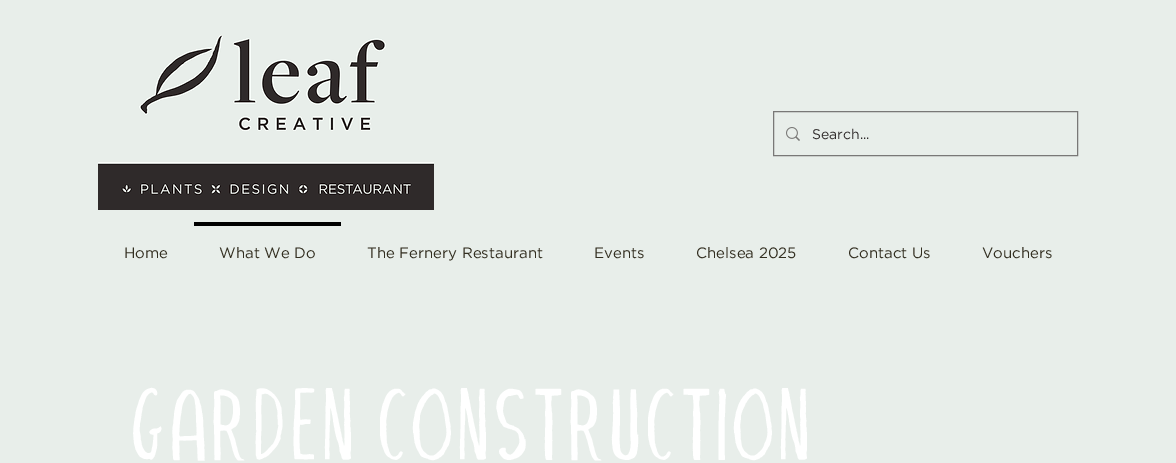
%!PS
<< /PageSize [1176 463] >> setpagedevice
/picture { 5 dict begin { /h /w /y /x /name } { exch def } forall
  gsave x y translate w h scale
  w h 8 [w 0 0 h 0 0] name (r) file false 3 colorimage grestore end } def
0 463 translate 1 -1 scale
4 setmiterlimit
0.91 0.933 0.918 setrgbcolor
0 0 1176 463 rectfill
(img1.rgb) 98 34 336 176 picture
0.475 0.471 0.467 setrgbcolor
773.5 111.5 304 44 rectstroke
(img2.rgb) 786 127 14 14 picture
/Gotham-Regular [14 0 0 -14 0 0] selectfont
0.184 0.165 0.165 setrgbcolor
812 139 moveto (Search...) show
/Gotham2-Regular [15 0 0 -15 0 0] selectfont
0.2 0.184 0.129 setrgbcolor
124 258 moveto (Home) show
0 setgray
194 222 147 4 rectfill
0.2 0.184 0.129 setrgbcolor
219 258 moveto (What We Do) show
367 258 moveto (The Fernery Restaurant) show
594 258 moveto (Events) show
696 258 moveto (Chelsea 2025) show
848 258 moveto (Contact Us) show
982 258 moveto (Vouchers) show
/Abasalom-Regular [102 0 0 -102 0 0] selectfont
1 setgray
128 460 moveto (GARDEN CONSTRUCTION) show
showpage
